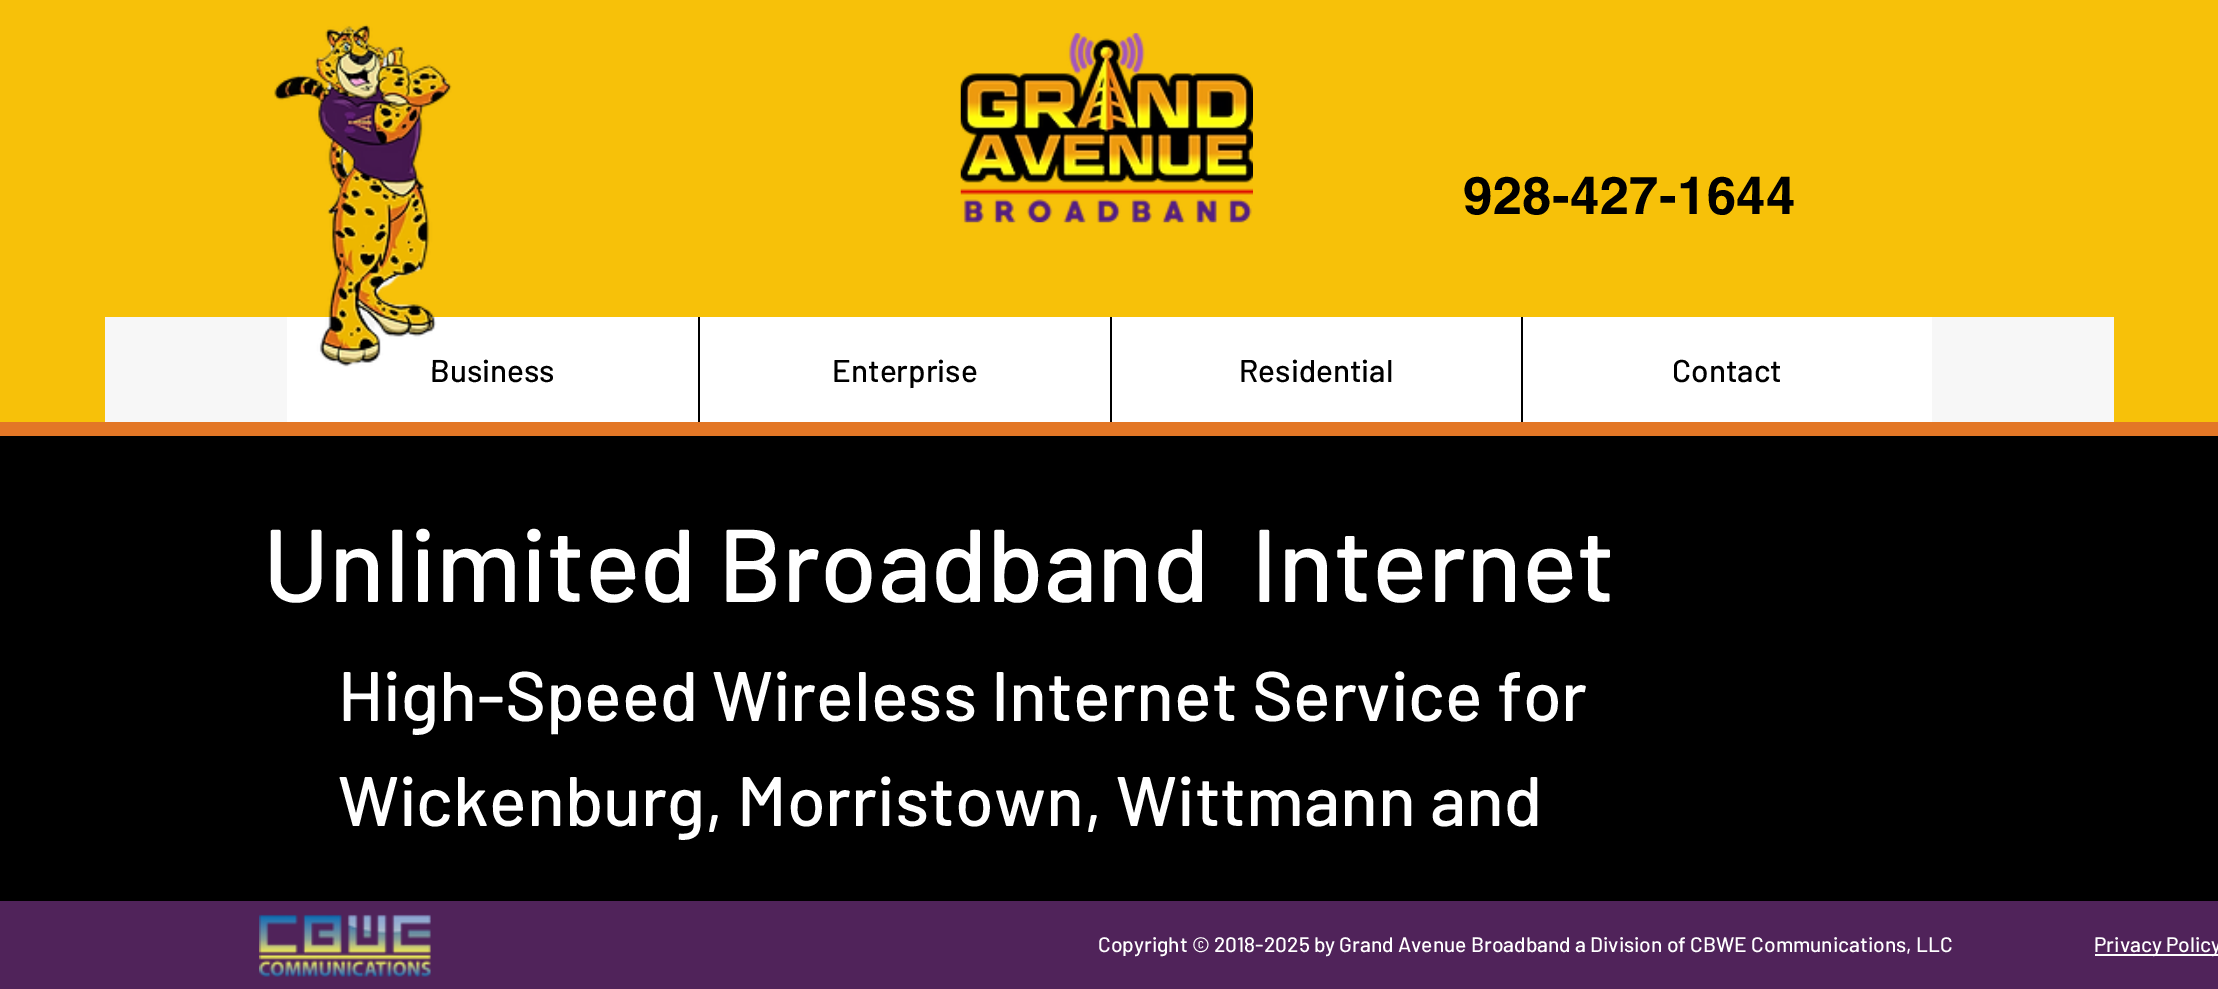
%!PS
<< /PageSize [2218 989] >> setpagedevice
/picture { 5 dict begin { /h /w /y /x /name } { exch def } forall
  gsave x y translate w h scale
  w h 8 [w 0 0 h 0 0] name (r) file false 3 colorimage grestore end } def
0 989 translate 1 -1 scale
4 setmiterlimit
0 setgray
0 0 2218 989 rectfill
0.969 0.757 0.035 setrgbcolor
0 0 2218 422 rectfill
0.89 0.467 0.149 setrgbcolor
0 422 2218 14 rectfill
0.969 setgray
105 317 2009 105 rectfill
1 setgray
287 317 1645 105 rectfill
/Barlow-Medium [31.5 0 0 -31.5 0 0] selectfont
0 setgray
430 382 moveto (Business) show
(img1.rgb) 274 24 178 343 picture
(img2.rgb) 960 33 293 190 picture
/helvetica-Bold [52.5 0 0 -52.5 0 0] selectfont
1463 214 moveto 0.5 0 (928-427-1644) ashow
698 317 2 105 rectfill
/Barlow-Medium [31.5 0 0 -31.5 0 0] selectfont
832 382 moveto (Enterprise) show
1110 317 2 105 rectfill
1239 382 moveto (Residential) show
1521 317 2 105 rectfill
1672 382 moveto (Contact) show
/Barlow-Medium [103.25 0 0 -103.25 0 0] selectfont
1 setgray
263 602 moveto (Unlimited Broadband  Internet) show
/Barlow-Medium [70 0 0 -70 0 0] selectfont
338 721 moveto (High-Speed Wireless Internet Service for) show
338 826 moveto (Wickenburg, Morristown, Wittmann and) show
0.314 0.137 0.353 setrgbcolor
0 901 2218 88 rectfill
(img3.rgb) 259 914 172 63 picture
/Barlow-Medium [21 0 0 -21 0 0] selectfont
1 setgray
1098 952 moveto (Copyright © 2018-2025 by Grand Avenue Broadband a Division of CBWE Communications, LLC) show
2095 954 123 2 rectfill
2094 952 moveto (Privacy Policy) show
showpage
